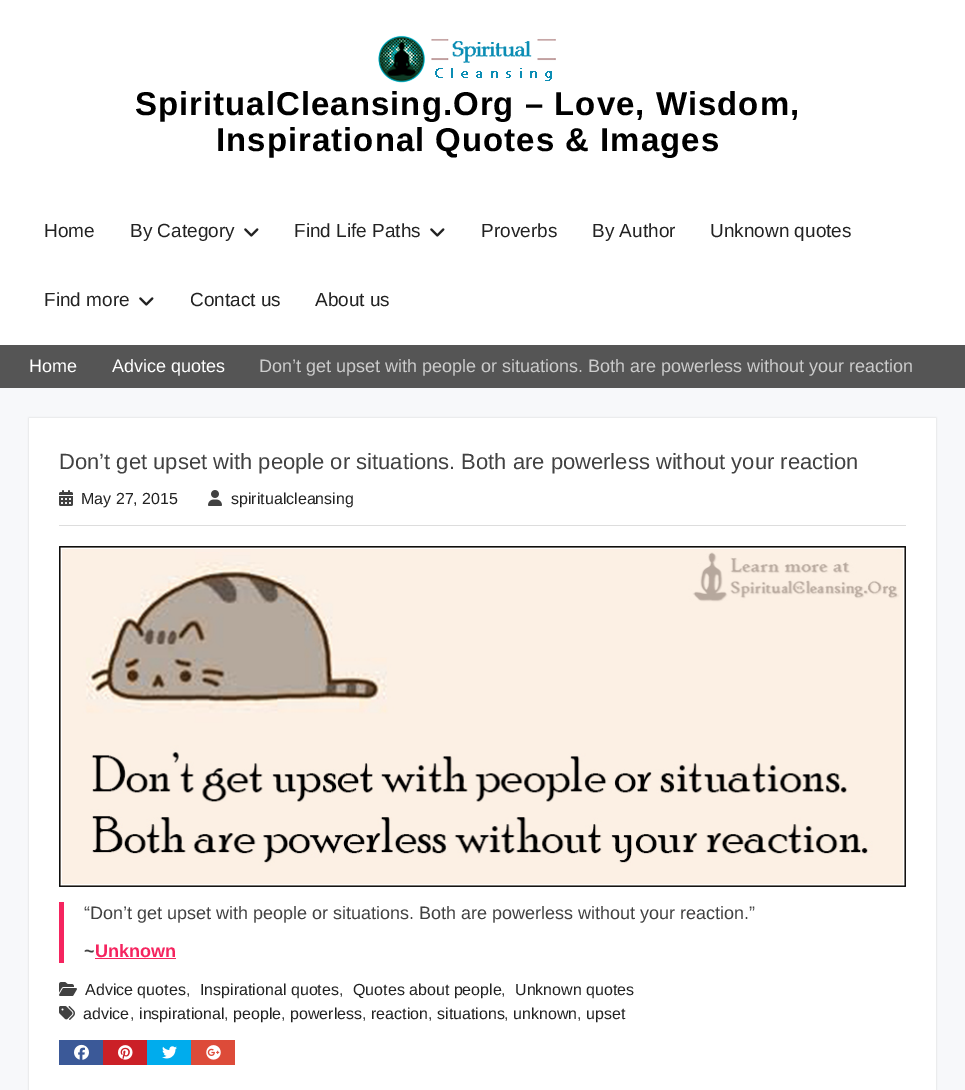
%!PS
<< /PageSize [965 1090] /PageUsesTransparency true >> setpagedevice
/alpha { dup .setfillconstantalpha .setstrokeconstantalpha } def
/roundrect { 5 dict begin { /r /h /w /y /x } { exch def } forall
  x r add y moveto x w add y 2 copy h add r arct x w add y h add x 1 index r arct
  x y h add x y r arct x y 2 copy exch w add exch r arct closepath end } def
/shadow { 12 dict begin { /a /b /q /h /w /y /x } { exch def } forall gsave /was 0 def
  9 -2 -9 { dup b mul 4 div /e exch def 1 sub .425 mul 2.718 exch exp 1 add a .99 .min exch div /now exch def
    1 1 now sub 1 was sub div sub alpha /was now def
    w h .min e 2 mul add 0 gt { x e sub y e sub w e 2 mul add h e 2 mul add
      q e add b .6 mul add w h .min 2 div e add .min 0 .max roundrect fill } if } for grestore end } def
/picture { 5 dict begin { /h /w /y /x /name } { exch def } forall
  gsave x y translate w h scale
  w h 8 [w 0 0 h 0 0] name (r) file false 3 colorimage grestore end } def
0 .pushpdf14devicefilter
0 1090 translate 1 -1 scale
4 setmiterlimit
1 setgray
0 0 965 1090 rectfill
(img1.rgb) 378 35 178 48 picture
/LiberationSans-Bold [33 0 0 -33 0 0] selectfont
0 setgray
135 115 moveto 1 0 (SpiritualCleansing.Org – Love, Wisdom,) ashow
216 151 moveto 1 0 (Inspirational Quotes & Images) ashow
/LiberationSans-Regular [19 0 0 -19 0 0] selectfont
0.133 setgray
44 237 moveto (Home) show
130 237 moveto (By Category) show
(img2.rgb) 244 228 15 9 picture
294 237 moveto (Find Life Paths) show
(img2.rgb) 430 228 15 9 picture
481 237 moveto (Proverbs) show
592 237 moveto (By Author) show
710 237 moveto (Unknown quotes) show
44 306 moveto (Find more) show
(img2.rgb) 139 297 15 9 picture
190 306 moveto (Contact us) show
315 306 moveto (About us) show
0.333 setgray
0 345 965 43 rectfill
/LiberationSans-Regular [18 0 0 -18 0 0] selectfont
1 setgray
29 372 moveto (Home) show
112 372 moveto (Advice quotes) show
0.8 setgray
259 372 moveto (Don’t get upset with people or situations. Both are powerless without your reaction) show
0.969 0.973 0.98 setrgbcolor
0 388 965 702 rectfill
0.812 setgray
29 418 907 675 0 1 1 shadow
1 setgray
29 418 907 672 rectfill
/LiberationSans-Regular [22 0 0 -22 0 0] selectfont
0.255 setgray
59 469 moveto (Don’t get upset with people or situations. Both are powerless without your reaction) show
0.867 setgray
59 525 847 1 rectfill
(img3.rgb) 59 490 14 16 picture
/LiberationSans-Regular [16 0 0 -16 0 0] selectfont
0.133 setgray
81 504 moveto (May 27, 2015) show
(img4.rgb) 208 490 14 16 picture
231 504 moveto (spiritualcleansing) show
(img5.rgb) 59 546 847 341 picture
0.961 0.141 0.373 setrgbcolor
59 902 5 61 rectfill
/LiberationSans-Regular [18 0 0 -18 0 0] selectfont
0.255 setgray
84 919 moveto (“Don’t get upset with people or situations. Both are powerless without your reaction.”) show
/LiberationSans-Bold [18 0 0 -18 0 0] selectfont
84 957 moveto (~) show
0.961 0.141 0.373 setrgbcolor
95 958 81 1 rectfill
95 957 moveto (Unknown) show
(img6.rgb) 59 982 18 14 picture
/LiberationSans-Regular [16 0 0 -16 0 0] selectfont
0.133 setgray
85 995 moveto (Advice quotes) show
0.255 setgray
186 995 moveto (,) show
0.133 setgray
200 995 moveto (Inspirational quotes) show
0.255 setgray
339 995 moveto (,) show
0.133 setgray
353 995 moveto (Quotes about people) show
0.255 setgray
501 995 moveto (,) show
0.133 setgray
515 995 moveto (Unknown quotes) show
(img7.rgb) 59 1006 16 14 picture
83 1019 moveto (advice) show
0.255 setgray
130 1019 moveto (,) show
0.133 setgray
139 1019 moveto (inspirational) show
0.255 setgray
224 1019 moveto (,) show
0.133 setgray
233 1019 moveto (people) show
0.255 setgray
281 1019 moveto (,) show
0.133 setgray
290 1019 moveto (powerless) show
0.255 setgray
362 1019 moveto (,) show
0.133 setgray
371 1019 moveto (reaction) show
0.255 setgray
428 1019 moveto (,) show
0.133 setgray
437 1019 moveto (situations) show
0.255 setgray
504 1019 moveto (,) show
0.133 setgray
513 1019 moveto (unknown) show
0.255 setgray
577 1019 moveto (,) show
0.133 setgray
586 1019 moveto (upset) show
0.231 0.349 0.596 setrgbcolor
59 1040 44 25 rectfill
(img8.rgb) 74 1044 15 16 picture
0.796 0.125 0.153 setrgbcolor
103 1040 44 25 rectfill
(img9.rgb) 118 1045 15 15 picture
0 0.675 0.929 setrgbcolor
147 1040 44 25 rectfill
(img10.rgb) 162 1046 15 13 picture
0.867 0.294 0.224 setrgbcolor
191 1040 44 25 rectfill
(img11.rgb) 206 1045 15 15 picture
.poppdf14devicefilter showpage
